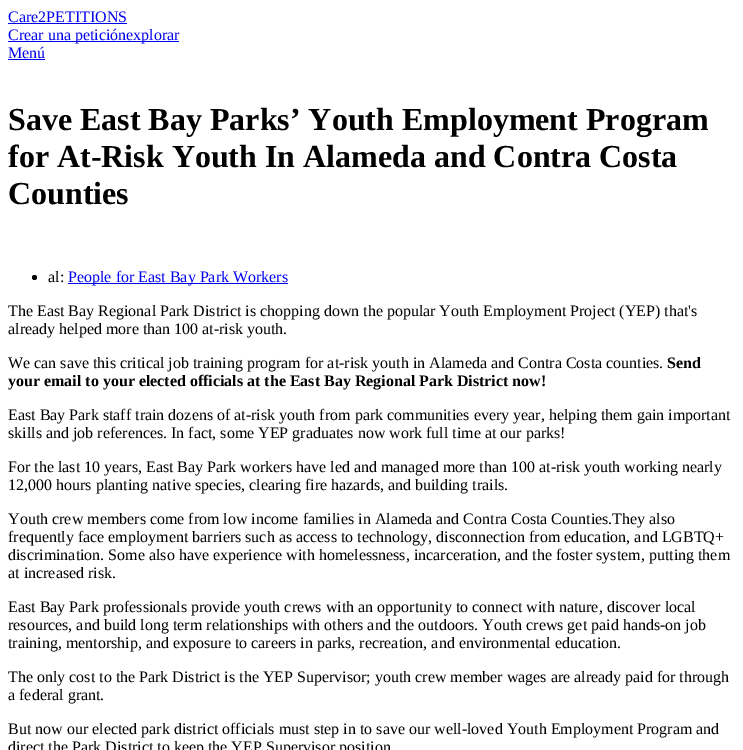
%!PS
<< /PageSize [743 750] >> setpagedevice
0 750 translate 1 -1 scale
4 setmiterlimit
1 setgray
0 0 743 750 rectfill
/LiberationSerif-Regular [16 0 0 -16 0 0] selectfont
0 0 0.933 setrgbcolor
8 22 moveto (Care2PETITIONS) show
8 23 119 1 rectfill
8 41 171 1 rectfill
8 40 moveto (Crear una peticiónexplorar) show
8 58 moveto (Menú) show
8 59 37 1 rectfill
/LiberationSerif-Bold [32 0 0 -32 0 0] selectfont
0 setgray
8 130 moveto (Save East Bay Parks’ Youth Employment Program) show
8 167 moveto (for At-Risk Youth In Alameda and Contra Costa) show
8 204 moveto (Counties) show
newpath 34.5 277.5 2.5 0 360 arc closepath fill
/LiberationSerif-Regular [16 0 0 -16 0 0] selectfont
48 282 moveto (al:) show
0 0 0.933 setrgbcolor
68 283 220 1 rectfill
68 282 moveto (People for East Bay Park Workers) show
0 setgray
8 316 moveto (The East Bay Regional Park District is chopping down the popular Youth Employment Project \(YEP\) that's) show
8 334 moveto (already helped more than 100 at-risk youth.) show
8 368 moveto (We can save this critical job training program for at-risk youth in Alameda and Contra Costa counties.) show
/LiberationSerif-Bold [16 0 0 -16 0 0] selectfont
667 368 moveto (Send) show
8 386 moveto (your email to your elected officials at the East Bay Regional Park District now!) show
/LiberationSerif-Regular [16 0 0 -16 0 0] selectfont
8 420 moveto (East Bay Park staff train dozens of at-risk youth from park communities every year, helping them gain important) show
8 438 moveto (skills and job references. In fact, some YEP graduates now work full time at our parks!) show
8 472 moveto (For the last 10 years, East Bay Park workers have led and managed more than 100 at-risk youth working nearly) show
8 490 moveto (12,000 hours planting native species, clearing fire hazards, and building trails.) show
8 524 moveto (Youth crew members come from low income families in Alameda and Contra Costa Counties.They also) show
8 542 moveto (frequently face employment barriers such as access to technology, disconnection from education, and LGBTQ+) show
8 560 moveto (discrimination. Some also have experience with homelessness, incarceration, and the foster system, putting them) show
8 578 moveto (at increased risk.) show
8 612 moveto (East Bay Park professionals provide youth crews with an opportunity to connect with nature, discover local) show
8 630 moveto (resources, and build long term relationships with others and the outdoors. Youth crews get paid hands-on job) show
8 648 moveto (training, mentorship, and exposure to careers in parks, recreation, and environmental education.) show
8 682 moveto (The only cost to the Park District is the YEP Supervisor; youth crew member wages are already paid for through) show
8 700 moveto (a federal grant.) show
8 734 moveto (But now our elected park district officials must step in to save our well-loved Youth Employment Program and) show
8 752 moveto (direct the Park District to keep the YEP Supervisor position) show
showpage
